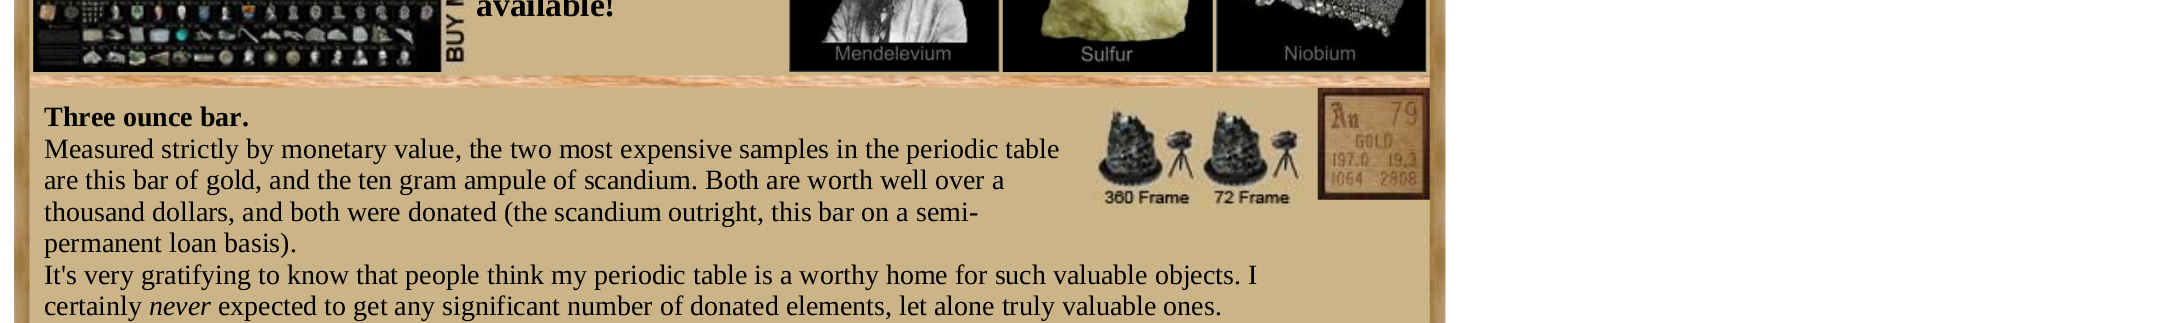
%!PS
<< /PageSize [2168 323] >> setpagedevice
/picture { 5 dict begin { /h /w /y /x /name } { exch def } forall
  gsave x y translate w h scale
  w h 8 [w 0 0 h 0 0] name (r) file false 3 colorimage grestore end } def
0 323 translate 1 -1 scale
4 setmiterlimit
1 setgray
0 0 2168 323 rectfill
(img1.rgb) 14 0 16 323 picture
0.796 0.706 0.533 setrgbcolor
30 0 1400 323 rectfill
(img2.rgb) 33 0 439 72 picture
/LiberationSerif-Bold [33.5 0 0 -33.5 0 0] selectfont
0 setgray
476 16 moveto (available!) show
(img3.rgb) 789 0 211 72 picture
(img4.rgb) 1002 0 211 72 picture
(img5.rgb) 1216 0 211 72 picture
(img6.rgb) 29 75 1401 11 picture
(img7.rgb) 29 86 1401 2 picture
/LiberationSerif-Bold [28 0 0 -28 0 0] selectfont
44 126 moveto (Three ounce bar.) show
(img9.rgb) 1198 101 106 106 picture
(img8.rgb) 1093 101 106 106 picture
/LiberationSerif-Regular [28 0 0 -28 0 0] selectfont
44 158 moveto (Measured strictly by monetary value, the two most expensive samples in the periodic table) show
44 189 moveto (are this bar of gold, and the ten gram ampule of scandium. Both are worth well over a) show
44 221 moveto (thousand dollars, and both were donated \(the scandium outright, this bar on a semi-) show
44 252 moveto (permanent loan basis\).) show
44 284 moveto (It's very gratifying to know that people think my periodic table is a worthy home for such valuable objects. I) show
44 315 moveto (certainly) show
/LiberationSerif-Italic [28 0 0 -28 0 0] selectfont
149 315 moveto (never) show
/LiberationSerif-Regular [28 0 0 -28 0 0] selectfont
218 315 moveto (expected to get any significant number of donated elements, let alone truly valuable ones.) show
(img11.rgb) 1429 0 17 323 picture
(img10.rgb) 1317 87 113 113 picture
showpage
